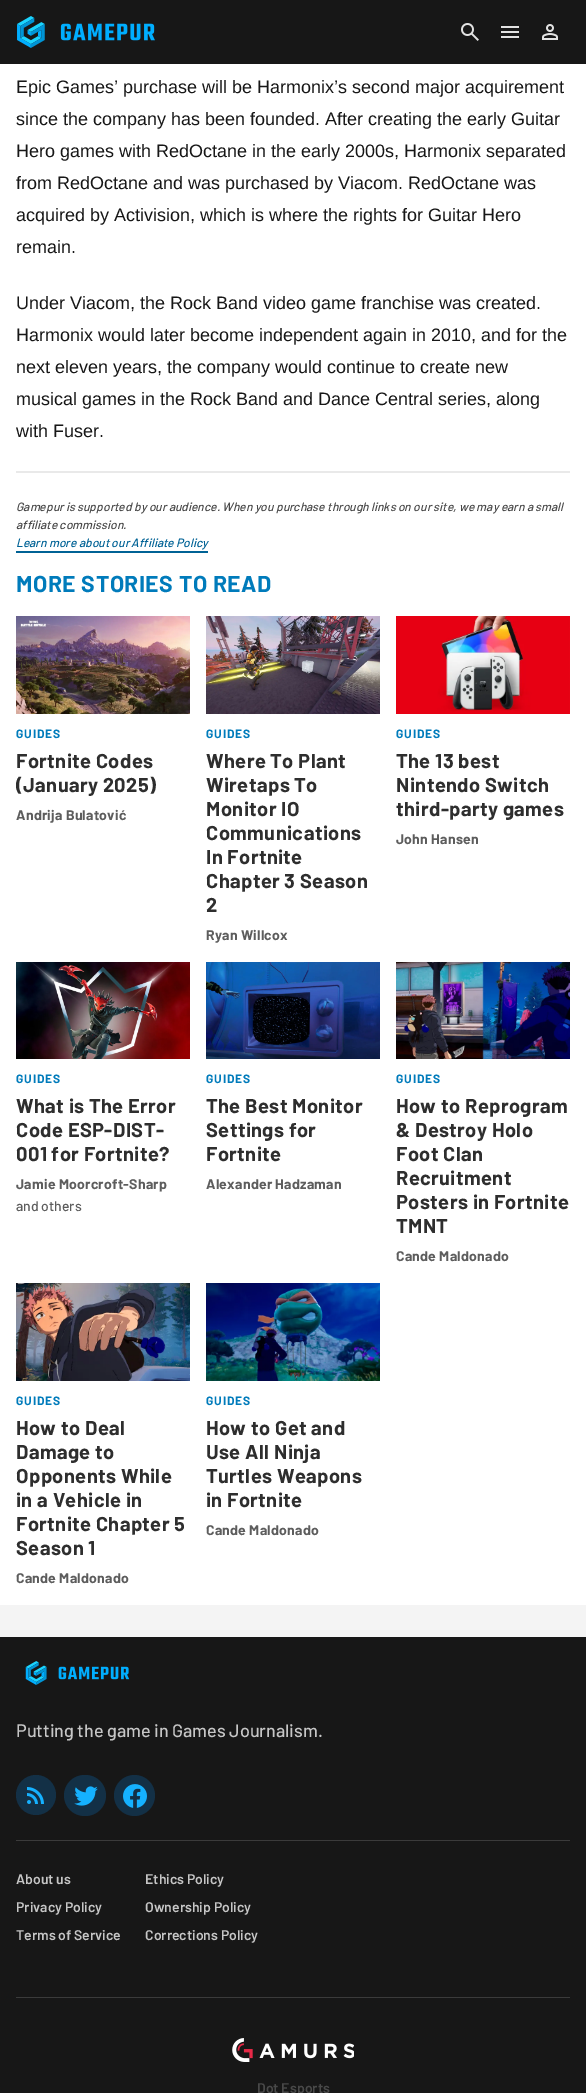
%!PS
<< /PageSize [586 2093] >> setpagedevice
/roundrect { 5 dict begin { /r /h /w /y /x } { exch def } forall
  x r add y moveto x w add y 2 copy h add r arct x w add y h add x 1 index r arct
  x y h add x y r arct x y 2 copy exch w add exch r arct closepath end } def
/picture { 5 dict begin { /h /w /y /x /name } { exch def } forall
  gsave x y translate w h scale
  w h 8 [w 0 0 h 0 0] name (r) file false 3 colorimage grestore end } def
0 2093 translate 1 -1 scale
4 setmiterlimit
1 setgray
0 0 586 2093 rectfill
0.09 setgray
0 0 586 64 rectfill
(img1.rgb) 17 16 138 32 picture
(img2.rgb) 461 23 18 18 picture
(img3.rgb) 501 26 18 12 picture
(img4.rgb) 542 24 16 16 picture
/LiberationSans-Regular [18 0 0 -18 0 0] selectfont
16 93 moveto (Epic Games’ purchase will be Harmonix’s second major acquirement) show
16 125 moveto (since the company has been founded. After creating the early Guitar) show
16 157 moveto (Hero games with RedOctane in the early 2000s, Harmonix separated) show
16 189 moveto (from RedOctane and was purchased by Viacom. RedOctane was) show
16 221 moveto (acquired by Activision, which is where the rights for Guitar Hero) show
16 253 moveto (remain.) show
16 309 moveto (Under Viacom, the Rock Band video game franchise was created.) show
16 341 moveto (Harmonix would later become independent again in 2010, and for the) show
16 373 moveto (next eleven years, the company would continue to create new) show
16 405 moveto (musical games in the Rock Band and Dance Central series, along) show
16 437 moveto (with Fuser.) show
0.914 setgray
16 471 554 2 rectfill
/Barlow-MediumItalic [12 0 0 -12 0 0] selectfont
0.286 setgray
16 511 moveto (Gamepur is supported by our audience. When you purchase through links on our site, we may earn a small) show
16 529 moveto (affiliate commission.) show
0 0.384 0.584 setrgbcolor
16 547 moveto (Learn more about our Affiliate Policy) show
16 551 192 2 rectfill
/Barlow-Bold [23 0 0 -23 0 0] selectfont
0 0.482 0.733 setrgbcolor
16 592 moveto 0.5 0 (MORE STORIES TO READ) ashow
(img5.rgb) 16 616 174 98 picture
/Barlow-Bold [12 0 0 -12 0 0] selectfont
16 738 moveto 1 0 (GUIDES) ashow
/Barlow-Bold [20 0 0 -20 0 0] selectfont
0.18 setgray
16 768 moveto 0.4 0 (Fortnite Codes) ashow
16 792 moveto 0.4 0 (\(January 2025\)) ashow
/Barlow-Bold [14 0 0 -14 0 0] selectfont
0.365 setgray
16 820 moveto 0.25 0 (Andrija Bulatović) ashow
(img6.rgb) 206 616 174 98 picture
/Barlow-Bold [12 0 0 -12 0 0] selectfont
0 0.482 0.733 setrgbcolor
206 738 moveto 1 0 (GUIDES) ashow
/Barlow-Bold [20 0 0 -20 0 0] selectfont
0.18 setgray
206 768 moveto 0.4 0 (Where To Plant) ashow
206 792 moveto 0.4 0 (Wiretaps To) ashow
206 816 moveto 0.4 0 (Monitor IO) ashow
206 840 moveto 0.4 0 (Communications) ashow
206 864 moveto 0.4 0 (In Fortnite) ashow
206 888 moveto 0.4 0 (Chapter 3 Season) ashow
206 912 moveto 0.4 0 (2) ashow
/Barlow-Bold [14 0 0 -14 0 0] selectfont
0.365 setgray
206 940 moveto 0.25 0 (Ryan Willcox) ashow
(img7.rgb) 396 616 174 98 picture
/Barlow-Bold [12 0 0 -12 0 0] selectfont
0 0.482 0.733 setrgbcolor
396 738 moveto 1 0 (GUIDES) ashow
/Barlow-Bold [20 0 0 -20 0 0] selectfont
0.18 setgray
396 768 moveto 0.4 0 (The 13 best) ashow
396 792 moveto 0.4 0 (Nintendo Switch) ashow
396 816 moveto 0.4 0 (third-party games) ashow
/Barlow-Bold [14 0 0 -14 0 0] selectfont
0.365 setgray
396 844 moveto 0.25 0 (John Hansen) ashow
(img8.rgb) 16 962 174 97 picture
/Barlow-Bold [12 0 0 -12 0 0] selectfont
0 0.482 0.733 setrgbcolor
16 1083 moveto 1 0 (GUIDES) ashow
/Barlow-Bold [20 0 0 -20 0 0] selectfont
0.18 setgray
16 1113 moveto 0.4 0 (What is The Error) ashow
16 1137 moveto 0.4 0 (Code ESP-DIST-) ashow
16 1161 moveto 0.4 0 (001 for Fortnite?) ashow
/Barlow-Bold [14 0 0 -14 0 0] selectfont
0.365 setgray
16 1189 moveto 0.25 0 (Jamie Moorcroft-Sharp) ashow
/Barlow-Medium [14 0 0 -14 0 0] selectfont
16 1211 moveto (and others) show
(img9.rgb) 206 962 174 97 picture
/Barlow-Bold [12 0 0 -12 0 0] selectfont
0 0.482 0.733 setrgbcolor
206 1083 moveto 1 0 (GUIDES) ashow
/Barlow-Bold [20 0 0 -20 0 0] selectfont
0.18 setgray
206 1113 moveto 0.4 0 (The Best Monitor) ashow
206 1137 moveto 0.4 0 (Settings for) ashow
206 1161 moveto 0.4 0 (Fortnite) ashow
/Barlow-Bold [14 0 0 -14 0 0] selectfont
0.365 setgray
206 1189 moveto 0.25 0 (Alexander Hadzaman) ashow
(img10.rgb) 396 962 174 97 picture
/Barlow-Bold [12 0 0 -12 0 0] selectfont
0 0.482 0.733 setrgbcolor
396 1083 moveto 1 0 (GUIDES) ashow
/Barlow-Bold [20 0 0 -20 0 0] selectfont
0.18 setgray
396 1113 moveto 0.4 0 (How to Reprogram) ashow
396 1137 moveto 0.4 0 (& Destroy Holo) ashow
396 1161 moveto 0.4 0 (Foot Clan) ashow
396 1185 moveto 0.4 0 (Recruitment) ashow
396 1209 moveto 0.4 0 (Posters in Fortnite) ashow
396 1233 moveto 0.4 0 (TMNT) ashow
/Barlow-Bold [14 0 0 -14 0 0] selectfont
0.365 setgray
396 1261 moveto 0.25 0 (Cande Maldonado) ashow
(img11.rgb) 16 1283 174 98 picture
/Barlow-Bold [12 0 0 -12 0 0] selectfont
0 0.482 0.733 setrgbcolor
16 1405 moveto 1 0 (GUIDES) ashow
/Barlow-Bold [20 0 0 -20 0 0] selectfont
0.18 setgray
16 1435 moveto 0.4 0 (How to Deal) ashow
16 1459 moveto 0.4 0 (Damage to) ashow
16 1483 moveto 0.4 0 (Opponents While) ashow
16 1507 moveto 0.4 0 (in a Vehicle in) ashow
16 1531 moveto 0.4 0 (Fortnite Chapter 5) ashow
16 1555 moveto 0.4 0 (Season 1) ashow
/Barlow-Bold [14 0 0 -14 0 0] selectfont
0.365 setgray
16 1583 moveto 0.25 0 (Cande Maldonado) ashow
(img12.rgb) 206 1283 174 98 picture
/Barlow-Bold [12 0 0 -12 0 0] selectfont
0 0.482 0.733 setrgbcolor
206 1405 moveto 1 0 (GUIDES) ashow
/Barlow-Bold [20 0 0 -20 0 0] selectfont
0.18 setgray
206 1435 moveto 0.4 0 (How to Get and) ashow
206 1459 moveto 0.4 0 (Use All Ninja) ashow
206 1483 moveto 0.4 0 (Turtles Weapons) ashow
206 1507 moveto 0.4 0 (in Fortnite) ashow
/Barlow-Bold [14 0 0 -14 0 0] selectfont
0.365 setgray
206 1535 moveto 0.25 0 (Cande Maldonado) ashow
0.957 setgray
0 1605 586 32 rectfill
0.09 setgray
0 1637 586 456 rectfill
(img13.rgb) 25 1661 105 24 picture
/Barlow-Medium [18 0 0 -18 0 0] selectfont
0.776 setgray
16 1737 moveto (Putting the game in Games Journalism.) show
0.075 0.188 0.275 setrgbcolor
newpath 36 1795 20 0 360 arc closepath fill
(img14.rgb) 27 1787 17 17 picture
64 1775 42 41 20.5 roundrect fill
(img15.rgb) 74 1786 24 20 picture
newpath 134.5 1795.5 20.5 0 360 arc closepath fill
(img16.rgb) 123 1784 24 24 picture
0.231 setgray
16 1840 554 1 rectfill
/Barlow-SemiBold [14 0 0 -14 0 0] selectfont
0.776 setgray
16 1884 moveto (About us) show
145 1884 moveto (Ethics Policy) show
16 1912 moveto (Privacy Policy) show
145 1912 moveto (Ownership Policy) show
16 1940 moveto (Terms of Service) show
145 1940 moveto (Corrections Policy) show
0.231 setgray
16 1997 554 1 rectfill
(img17.rgb) 232 2038 122 24 picture
0.286 setgray
257 2093 moveto (Dot Esports) show
showpage
